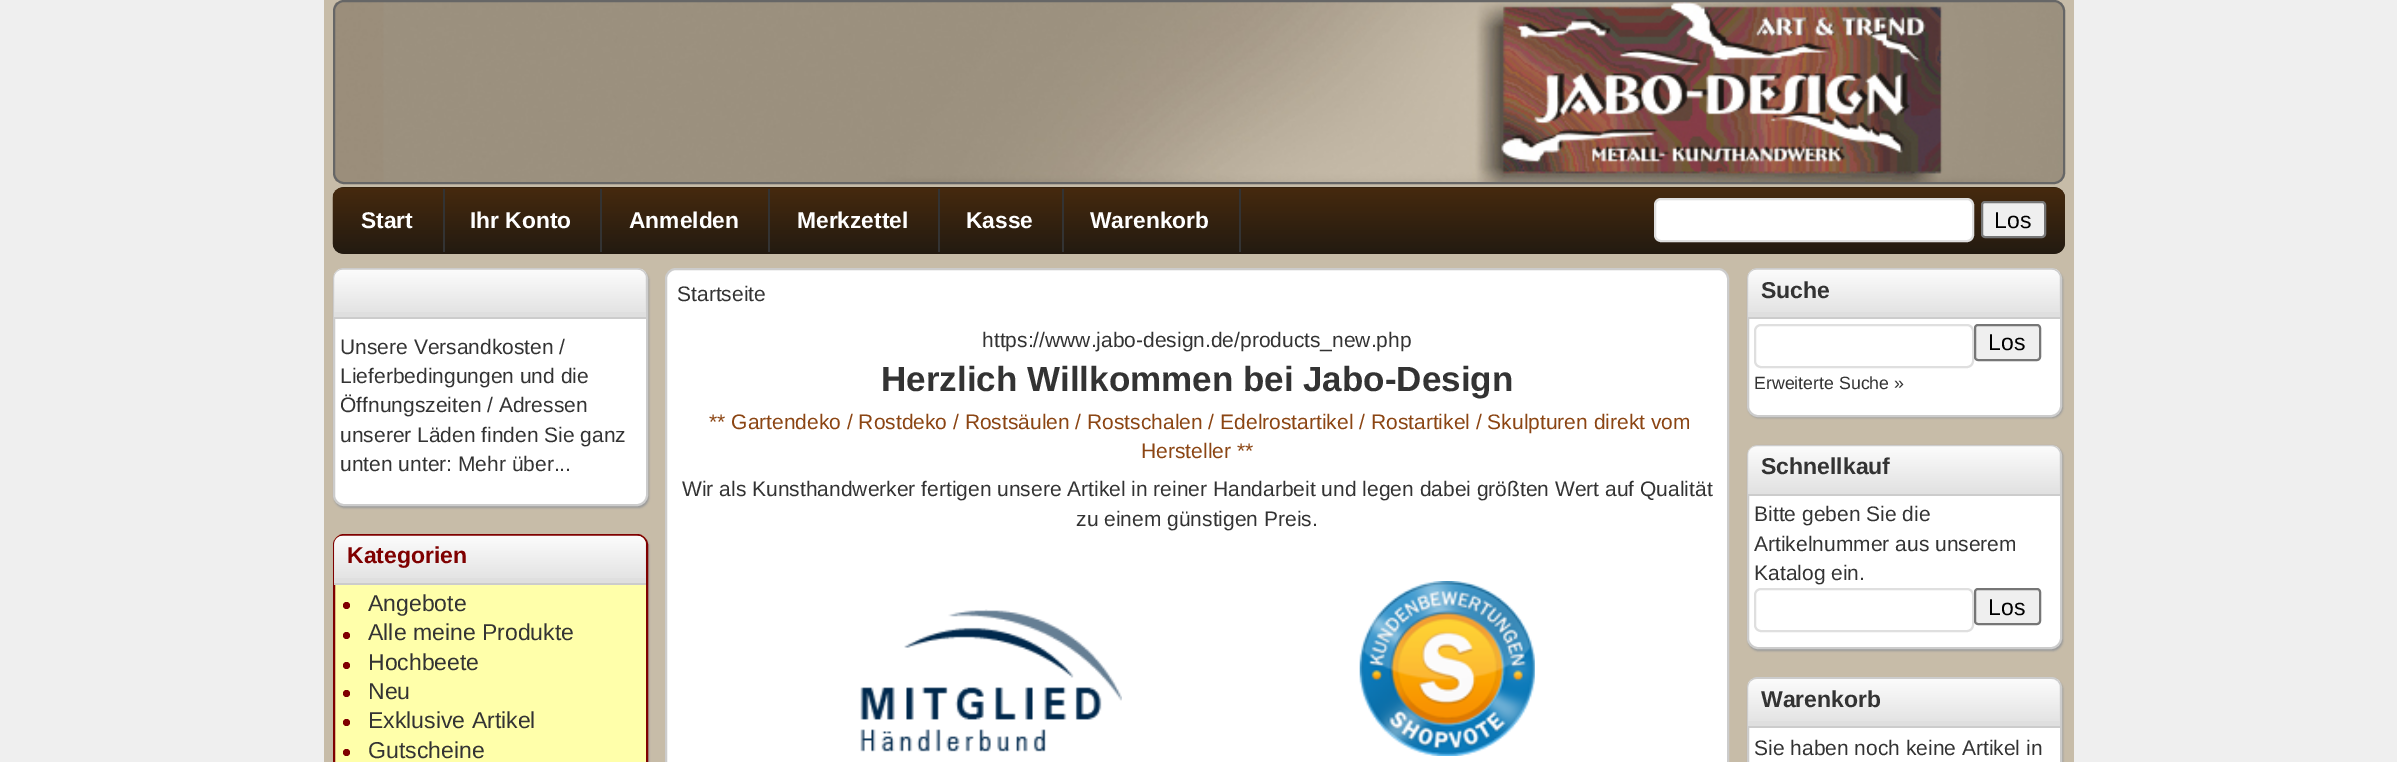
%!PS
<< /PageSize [2397 762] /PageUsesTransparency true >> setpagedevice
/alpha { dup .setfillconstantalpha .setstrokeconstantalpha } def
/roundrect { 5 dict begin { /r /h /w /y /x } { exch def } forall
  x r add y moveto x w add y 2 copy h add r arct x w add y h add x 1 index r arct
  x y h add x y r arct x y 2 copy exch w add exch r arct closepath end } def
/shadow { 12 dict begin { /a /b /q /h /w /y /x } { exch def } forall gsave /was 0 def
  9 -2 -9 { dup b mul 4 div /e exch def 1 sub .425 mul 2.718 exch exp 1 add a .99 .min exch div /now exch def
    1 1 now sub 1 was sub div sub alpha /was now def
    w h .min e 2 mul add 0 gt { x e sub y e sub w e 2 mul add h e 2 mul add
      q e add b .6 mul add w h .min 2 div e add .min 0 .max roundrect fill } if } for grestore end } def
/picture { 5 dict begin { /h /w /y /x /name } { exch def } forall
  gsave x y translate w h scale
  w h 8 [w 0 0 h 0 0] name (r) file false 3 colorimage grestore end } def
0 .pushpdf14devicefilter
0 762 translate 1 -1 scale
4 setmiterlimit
0.937 setgray
0 0 2397 762 rectfill
0.78 0.737 0.659 setrgbcolor
324 0 1750 762 rectfill
(img1.rgb) 334 1 1731 181 picture
0.4 setgray
2 setlinewidth
334 1 1730 182 10 roundrect stroke
0.133 0.102 0.067 setrgbcolor
333 187 1732 67 11 roundrect fill
(img2.rgb) 332 187 1733 67 picture
0.2 setgray
443 189 2 63 rectfill
/LiberationSans-Bold [22.75 0 0 -22.75 0 0] selectfont
1 setgray
361 228 moveto (Start) show
0.2 setgray
600 189 2 63 rectfill
1 setgray
470 228 moveto (Ihr Konto) show
0.2 setgray
768 189 2 63 rectfill
1 setgray
629 228 moveto (Anmelden) show
0.2 setgray
938 189 2 63 rectfill
1 setgray
797 228 moveto (Merkzettel) show
0.2 setgray
1062 189 2 63 rectfill
1 setgray
966 228 moveto (Kasse) show
0.2 setgray
1239 189 2 63 rectfill
1 setgray
1090 228 moveto (Warenkorb) show
1655 199 318 42 6 roundrect gsave fill grestore
0.875 setgray
stroke
0.937 setgray
1982 202 63 35 3 roundrect gsave fill grestore
0.463 setgray
stroke
/LiberationSans-Regular [23 0 0 -23 0 0] selectfont
0 setgray
1994 228 moveto (Los) show
0.6 setgray
334 270 315 238 11 1 1 shadow
1 setgray
334 269 313 236 10 roundrect gsave fill grestore
0.8 setgray
stroke
0.875 setgray
newpath 343 270 moveto 637 270 lineto 642 270 646 274 646 279 curveto 646 319 lineto 334 319 lineto 334 279 lineto 334 274 338 270 343 270 curveto closepath fill
(img3.rgb) 334 269 312 43 picture
0.8 setgray
334 317 312 2 rectfill
/LiberationSans-Regular [21 0 0 -21 0 0] selectfont
0.2 setgray
340 354 moveto (Unsere Versandkosten /) show
340 383 moveto (Lieferbedingungen und die) show
340 412 moveto (Öffnungszeiten / Adressen) show
340 442 moveto (unserer Läden finden Sie ganz) show
340 471 moveto (unten unter: Mehr über...) show
0.6 setgray
334 536 315 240 11 1 1 shadow
1 1 0.667 setrgbcolor
334 535 313 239 10 roundrect gsave fill grestore
0.498 0 0 setrgbcolor
stroke
0.875 setgray
newpath 343 536 moveto 637 536 lineto 642 536 646 540 646 545 curveto 646 585 lineto 334 585 lineto 334 545 lineto 334 540 338 536 343 536 curveto closepath fill
(img4.rgb) 334 535 312 43 picture
0.8 setgray
334 583 312 2 rectfill
/LiberationSans-Bold [23 0 0 -23 0 0] selectfont
0.498 0 0 setrgbcolor
347 563 moveto (Kategorien) show
newpath 346.5 605.5 3.5 0 360 arc closepath fill
/LiberationSans-Regular [23 0 0 -23 0 0] selectfont
0.2 setgray
368 611 moveto (Angebote) show
0.498 0 0 setrgbcolor
newpath 346.5 635.5 3.5 0 360 arc closepath fill
0.2 setgray
368 640 moveto (Alle meine Produkte) show
0.498 0 0 setrgbcolor
newpath 346.5 665.5 3.5 0 360 arc closepath fill
0.2 setgray
368 670 moveto (Hochbeete) show
0.498 0 0 setrgbcolor
newpath 346.5 693.5 3.5 0 360 arc closepath fill
0.2 setgray
368 699 moveto (Neu) show
0.498 0 0 setrgbcolor
newpath 346.5 722.5 3.5 0 360 arc closepath fill
0.2 setgray
368 728 moveto (Exklusive Artikel) show
0.498 0 0 setrgbcolor
newpath 346.5 752.5 3.5 0 360 arc closepath fill
0.2 setgray
368 758 moveto (Gutscheine) show
1 setgray
666 269 1062 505 10 roundrect gsave fill grestore
0.8 setgray
stroke
/LiberationSans-Regular [21 0 0 -21 0 0] selectfont
0.2 setgray
677 301 moveto (Startseite) show
982 347 moveto (https://www.jabo-design.de/products_new.php) show
/LiberationSans-Bold [35 0 0 -35 0 0] selectfont
881 391 moveto (Herzlich Willkommen bei Jabo-Design) show
/LiberationSans-Regular [21 0 0 -21 0 0] selectfont
0.545 0.271 0.075 setrgbcolor
709 429 moveto (** Gartendeko / Rostdeko / Rostsäulen / Rostschalen / Edelrostartikel / Rostartikel / Skulpturen direkt vom) show
1141 458 moveto (Hersteller **) show
0.2 setgray
682 496 moveto (Wir als Kunsthandwerker fertigen unsere Artikel in reiner Handarbeit und legen dabei größten Wert auf Qualität) show
1076 526 moveto (zu einem günstigen Preis.) show
(img5.rgb) 860 609 262 143 picture
(img6.rgb) 1359 581 176 175 picture
0.6 setgray
1748 270 315 148 11 1 1 shadow
1 setgray
1748 269 313 147 10 roundrect gsave fill grestore
0.8 setgray
stroke
0.875 setgray
newpath 1757 270 moveto 2051 270 lineto 2056 270 2060 274 2060 279 curveto 2060 319 lineto 1748 319 lineto 1748 279 lineto 1748 274 1752 270 1757 270 curveto closepath fill
(img3.rgb) 1748 269 312 43 picture
0.8 setgray
1748 317 312 2 rectfill
/LiberationSans-Bold [23 0 0 -23 0 0] selectfont
0.2 setgray
1761 298 moveto (Suche) show
0.875 setgray
1755 325 218 42 6 roundrect stroke
0.937 setgray
1975 325 65 35 3 roundrect gsave fill grestore
0.463 setgray
stroke
/LiberationSans-Regular [23 0 0 -23 0 0] selectfont
0 setgray
1988 350 moveto (Los) show
/LiberationSans-Regular [17.75 0 0 -17.75 0 0] selectfont
0.2 setgray
1754 389 moveto (Erweiterte Suche ») show
0.6 setgray
1748 446 315 205 11 1 1 shadow
1 setgray
1748 446 313 202 10 roundrect gsave fill grestore
0.8 setgray
stroke
0.875 setgray
newpath 1757 446 moveto 2051 446 lineto 2056 446 2060 450 2060 455 curveto 2060 495 lineto 1748 495 lineto 1748 455 lineto 1748 450 1752 446 1757 446 curveto closepath fill
(img7.rgb) 1748 446 312 48 picture
0.8 setgray
1748 494 312 2 rectfill
/LiberationSans-Bold [23 0 0 -23 0 0] selectfont
0.2 setgray
1761 474 moveto (Schnellkauf) show
/LiberationSans-Regular [21 0 0 -21 0 0] selectfont
1754 521 moveto (Bitte geben Sie die) show
1754 551 moveto (Artikelnummer aus unserem) show
1754 580 moveto (Katalog ein.) show
0.875 setgray
1755 589 218 42 6 roundrect stroke
0.937 setgray
1975 589 65 35 3 roundrect gsave fill grestore
0.463 setgray
stroke
/LiberationSans-Regular [23 0 0 -23 0 0] selectfont
0 setgray
1988 615 moveto (Los) show
0.6 setgray
1748 679 315 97 11 1 1 shadow
1 setgray
1748 678 313 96 10 roundrect gsave fill grestore
0.8 setgray
stroke
0.875 setgray
newpath 1757 679 moveto 2051 679 lineto 2056 679 2060 683 2060 688 curveto 2060 728 lineto 1748 728 lineto 1748 688 lineto 1748 683 1752 679 1757 679 curveto closepath fill
(img8.rgb) 1748 679 312 42 picture
0.8 setgray
1748 726 312 2 rectfill
/LiberationSans-Bold [23 0 0 -23 0 0] selectfont
0.2 setgray
1761 707 moveto (Warenkorb) show
/LiberationSans-Regular [21 0 0 -21 0 0] selectfont
1754 755 moveto (Sie haben noch keine Artikel in) show
.poppdf14devicefilter showpage
